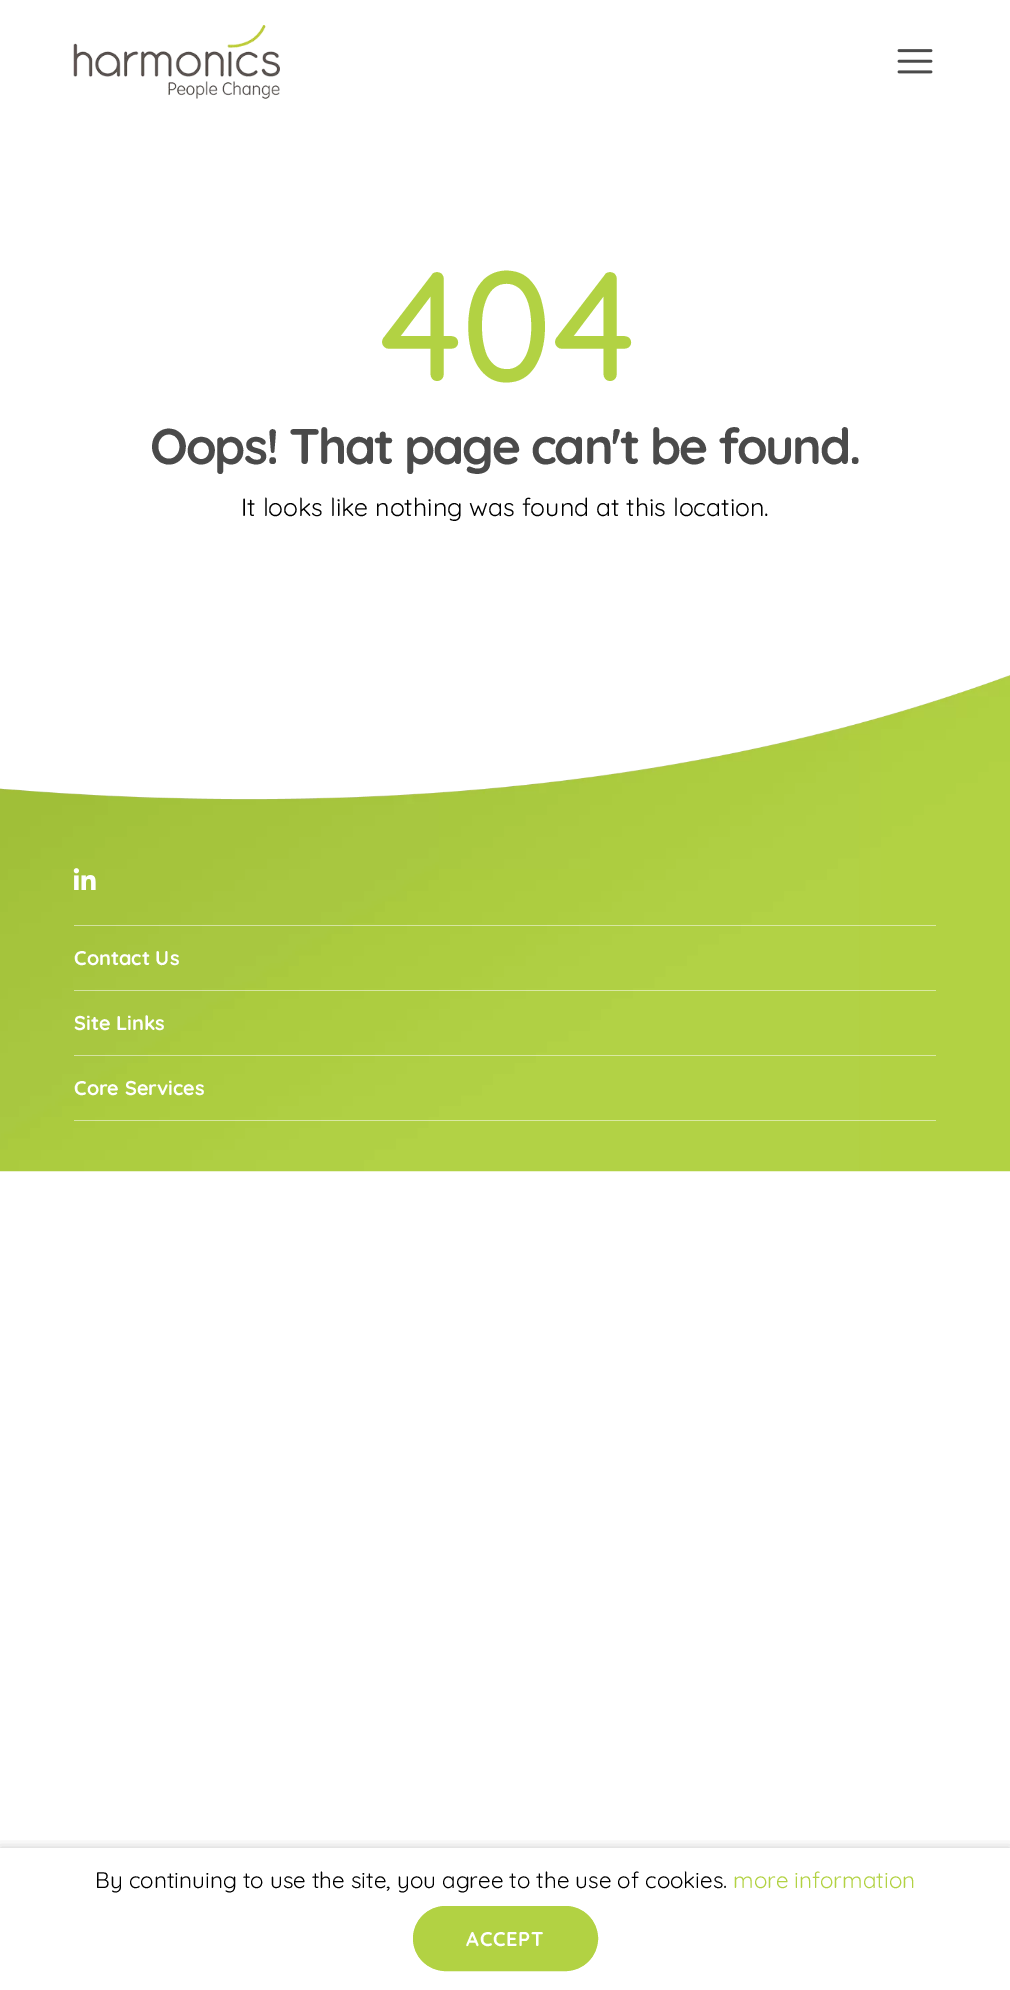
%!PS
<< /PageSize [1010 1990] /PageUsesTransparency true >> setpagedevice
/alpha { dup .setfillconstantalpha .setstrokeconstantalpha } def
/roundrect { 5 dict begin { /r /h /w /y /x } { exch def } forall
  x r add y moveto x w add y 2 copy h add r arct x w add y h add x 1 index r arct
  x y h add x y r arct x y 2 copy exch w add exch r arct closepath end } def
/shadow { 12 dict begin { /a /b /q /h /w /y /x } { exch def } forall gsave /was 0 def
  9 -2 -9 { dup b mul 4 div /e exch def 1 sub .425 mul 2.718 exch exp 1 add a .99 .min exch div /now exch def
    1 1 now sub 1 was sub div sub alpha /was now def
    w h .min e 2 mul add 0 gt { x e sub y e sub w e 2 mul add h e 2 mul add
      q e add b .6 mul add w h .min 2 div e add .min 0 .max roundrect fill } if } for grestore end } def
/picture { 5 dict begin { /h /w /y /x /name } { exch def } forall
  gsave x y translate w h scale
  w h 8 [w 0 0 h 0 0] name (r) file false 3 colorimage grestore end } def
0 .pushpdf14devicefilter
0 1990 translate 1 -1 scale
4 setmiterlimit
1 setgray
0 0 1010 1990 rectfill
(img1.rgb) 73 25 207 74 picture
(img2.rgb) 897 49 36 25 picture
/Quicksand-Bold [150 0 0 -150 0 0] selectfont
0.698 0.824 0.263 setrgbcolor
377 381 moveto (404) show
/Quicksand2-Bold [50 0 0 -50 0 0] selectfont
0.29 setgray
150 464 moveto -2.1 0 (Oops! That page can't be found.) ashow
/Quicksand-Regular [25 0 0 -25 0 0] selectfont
0 setgray
241 516 moveto (It looks like nothing was found at this location.) show
(img3.rgb) 0 675 1010 497 picture
0.5 alpha
1 setgray
74 925 862 1 rectfill
1 alpha
(img4.rgb) 73 868 23 22 picture
0.5 alpha
74 990 862 1 rectfill
/Quicksand2-Bold [20 0 0 -20 0 0] selectfont
1 alpha
74 965 moveto (Contact Us) show
0.5 alpha
74 1055 862 1 rectfill
1 alpha
74 1030 moveto (Site Links) show
0.5 alpha
74 1120 862 1 rectfill
1 alpha
74 1095 moveto (Core Services) show
gsave
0 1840 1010 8 rectclip
0 setgray
0 1848 1010 142 0 6 0.2 shadow
grestore
/Quicksand-Regular [22.5 0 0 -22.5 0 0] selectfont
0 setgray
95 1888 moveto (By continuing to use the site, you agree to the use of cookies.) show
0.698 0.824 0.263 setrgbcolor
733 1888 moveto (more information) show
413.5 1906.5 184 64 32 roundrect gsave fill grestore
stroke
/Quicksand2-Bold [20 0 0 -20 0 0] selectfont
1 setgray
466 1946 moveto 0.75 0 (ACCEPT) ashow
.poppdf14devicefilter showpage
